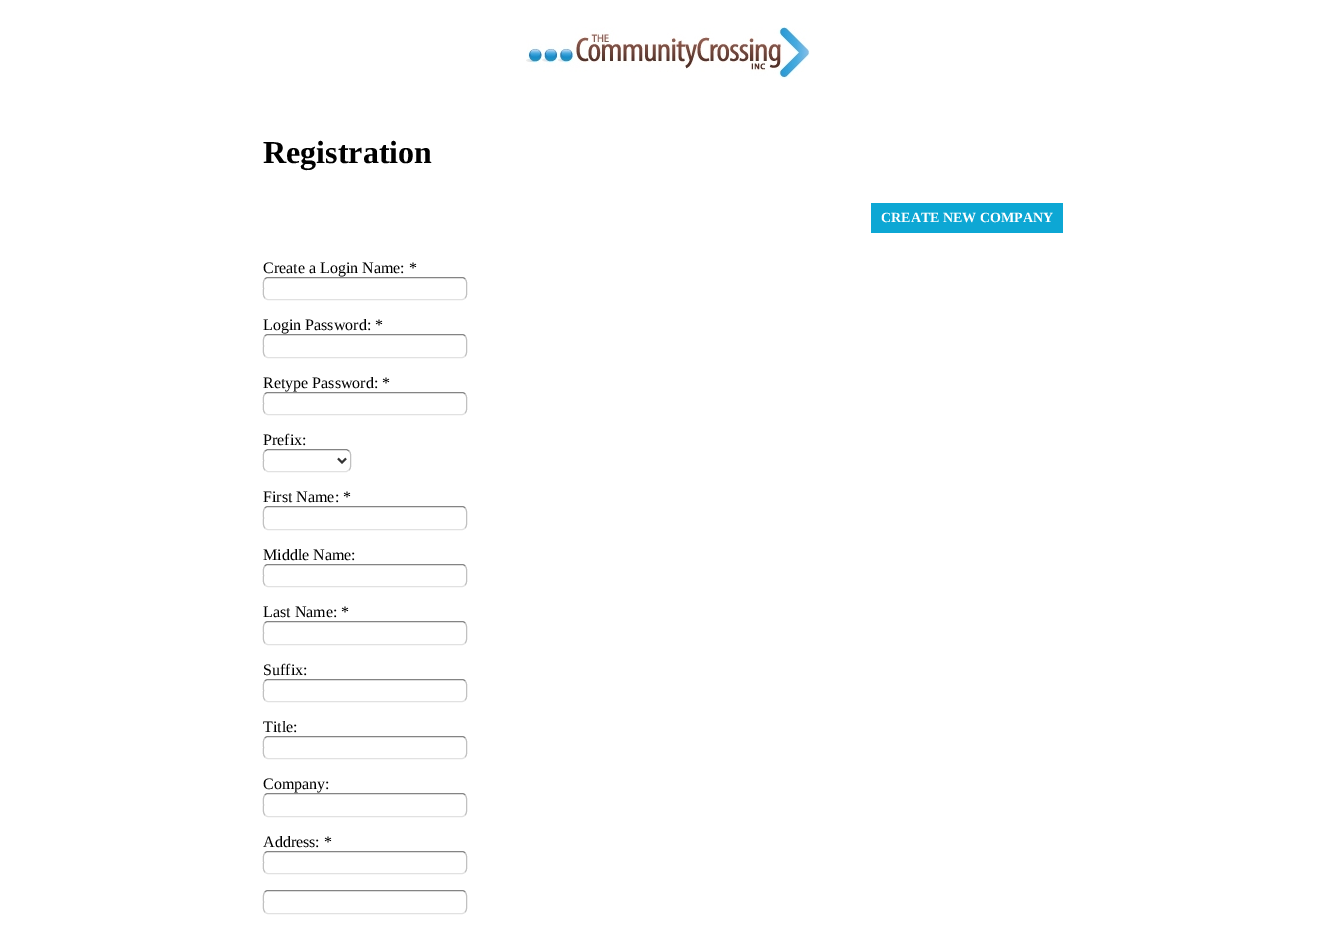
%!PS
<< /PageSize [1326 926] >> setpagedevice
/picture { 5 dict begin { /h /w /y /x /name } { exch def } forall
  gsave x y translate w h scale
  w h 8 [w 0 0 h 0 0] name (r) file false 3 colorimage grestore end } def
0 926 translate 1 -1 scale
4 setmiterlimit
1 setgray
0 0 1326 926 rectfill
(img1.rgb) 526 27 284 52 picture
/LiberationSerif-Bold [32 0 0 -32 0 0] selectfont
0 setgray
263 163 moveto (Registration) show
0.051 0.655 0.831 setrgbcolor
871 203 192 30 rectfill
/LiberationSerif-Bold [14 0 0 -14 0 0] selectfont
1 setgray
881 222 moveto (CREATE NEW COMPANY) show
/LiberationSerif-Regular [16 0 0 -16 0 0] selectfont
0 setgray
263 273 moveto (Create a Login Name: *) show
0.518 setgray
newpath 265 279 moveto 265.5 278 267 277.5 268 277.5 curveto 462 277.5 lineto 463 277.5 464.5 278 465 279 curveto stroke
0.757 setgray
newpath 465 279 moveto 467.5 281 466.5 285.5 466.5 288.5 curveto 466.5 291.5 467.5 296 465 298 curveto stroke
0.882 setgray
newpath 465 298 moveto 464.5 299 463 299.5 462 299.5 curveto 268 299.5 lineto 267 299.5 265.5 299 265 298 curveto stroke
0.757 setgray
newpath 265 298 moveto 262.5 296 263.5 291.5 263.5 288.5 curveto 263.5 285.5 262.5 281 265 279 curveto stroke
0 setgray
263 330 moveto (Login Password: *) show
0.518 setgray
newpath 265 336 moveto 265.5 335 267 334.5 268 334.5 curveto 462 334.5 lineto 463 334.5 464.5 335 465 336 curveto stroke
0.757 setgray
newpath 465 336 moveto 467.5 338 466.5 343 466.5 346 curveto 466.5 349 467.5 354 465 356 curveto stroke
0.882 setgray
newpath 465 356 moveto 464.5 357 463 357.5 462 357.5 curveto 268 357.5 lineto 267 357.5 265.5 357 265 356 curveto stroke
0.757 setgray
newpath 265 356 moveto 262.5 354 263.5 349 263.5 346 curveto 263.5 343 262.5 338 265 336 curveto stroke
0 setgray
263 388 moveto (Retype Password: *) show
0.518 setgray
newpath 265 394 moveto 265.5 393 267 392.5 268 392.5 curveto 462 392.5 lineto 463 392.5 464.5 393 465 394 curveto stroke
0.757 setgray
newpath 465 394 moveto 467.5 396 466.5 400.5 466.5 403.5 curveto 466.5 406.5 467.5 411 465 413 curveto stroke
0.882 setgray
newpath 465 413 moveto 464.5 414 463 414.5 462 414.5 curveto 268 414.5 lineto 267 414.5 265.5 414 265 413 curveto stroke
0.757 setgray
newpath 265 413 moveto 262.5 411 263.5 406.5 263.5 403.5 curveto 263.5 400.5 262.5 396 265 394 curveto stroke
0 setgray
263 445 moveto (Prefix:) show
0.518 setgray
newpath 265 451 moveto 267.5 449.5 lineto 346.5 449.5 lineto 349 451 lineto stroke
0.757 setgray
newpath 349 451 moveto 351.5 453 350.5 457.5 350.5 460.5 curveto 350.5 463.5 351.5 468 349 470 curveto stroke
0.882 setgray
newpath 349 470 moveto 346.5 471.5 lineto 267.5 471.5 lineto 265 470 lineto stroke
0.757 setgray
newpath 265 470 moveto 262.5 468 263.5 463.5 263.5 460.5 curveto 263.5 457.5 262.5 453 265 451 curveto stroke
0.2 setgray
2 setlinewidth
newpath 338 458.5 moveto 342 462.5 lineto 346 458.5 lineto stroke
0 setgray
263 502 moveto (First Name: *) show
0.518 setgray
1 setlinewidth
newpath 265 508 moveto 265.5 507 267 506.5 268 506.5 curveto 462 506.5 lineto 463 506.5 464.5 507 465 508 curveto stroke
0.757 setgray
newpath 465 508 moveto 467.5 510 466.5 515 466.5 518 curveto 466.5 521 467.5 526 465 528 curveto stroke
0.882 setgray
newpath 465 528 moveto 464.5 529 463 529.5 462 529.5 curveto 268 529.5 lineto 267 529.5 265.5 529 265 528 curveto stroke
0.757 setgray
newpath 265 528 moveto 262.5 526 263.5 521 263.5 518 curveto 263.5 515 262.5 510 265 508 curveto stroke
0 setgray
263 560 moveto (Middle Name:) show
0.518 setgray
newpath 265 566 moveto 265.5 565 267 564.5 268 564.5 curveto 462 564.5 lineto 463 564.5 464.5 565 465 566 curveto stroke
0.757 setgray
newpath 465 566 moveto 467.5 568 466.5 572.5 466.5 575.5 curveto 466.5 578.5 467.5 583 465 585 curveto stroke
0.882 setgray
newpath 465 585 moveto 464.5 586 463 586.5 462 586.5 curveto 268 586.5 lineto 267 586.5 265.5 586 265 585 curveto stroke
0.757 setgray
newpath 265 585 moveto 262.5 583 263.5 578.5 263.5 575.5 curveto 263.5 572.5 262.5 568 265 566 curveto stroke
0 setgray
263 617 moveto (Last Name: *) show
0.518 setgray
newpath 265 623 moveto 265.5 622 267 621.5 268 621.5 curveto 462 621.5 lineto 463 621.5 464.5 622 465 623 curveto stroke
0.757 setgray
newpath 465 623 moveto 467.5 625 466.5 630 466.5 633 curveto 466.5 636 467.5 641 465 643 curveto stroke
0.882 setgray
newpath 465 643 moveto 464.5 644 463 644.5 462 644.5 curveto 268 644.5 lineto 267 644.5 265.5 644 265 643 curveto stroke
0.757 setgray
newpath 265 643 moveto 262.5 641 263.5 636 263.5 633 curveto 263.5 630 262.5 625 265 623 curveto stroke
0 setgray
263 675 moveto (Suffix:) show
0.518 setgray
newpath 265 681 moveto 265.5 680 267 679.5 268 679.5 curveto 462 679.5 lineto 463 679.5 464.5 680 465 681 curveto stroke
0.757 setgray
newpath 465 681 moveto 467.5 683 466.5 687.5 466.5 690.5 curveto 466.5 693.5 467.5 698 465 700 curveto stroke
0.882 setgray
newpath 465 700 moveto 464.5 701 463 701.5 462 701.5 curveto 268 701.5 lineto 267 701.5 265.5 701 265 700 curveto stroke
0.757 setgray
newpath 265 700 moveto 262.5 698 263.5 693.5 263.5 690.5 curveto 263.5 687.5 262.5 683 265 681 curveto stroke
0 setgray
263 732 moveto (Title:) show
0.518 setgray
newpath 265 738 moveto 265.5 737 267 736.5 268 736.5 curveto 462 736.5 lineto 463 736.5 464.5 737 465 738 curveto stroke
0.757 setgray
newpath 465 738 moveto 467.5 740 466.5 744.5 466.5 747.5 curveto 466.5 750.5 467.5 755 465 757 curveto stroke
0.882 setgray
newpath 465 757 moveto 464.5 758 463 758.5 462 758.5 curveto 268 758.5 lineto 267 758.5 265.5 758 265 757 curveto stroke
0.757 setgray
newpath 265 757 moveto 262.5 755 263.5 750.5 263.5 747.5 curveto 263.5 744.5 262.5 740 265 738 curveto stroke
0 setgray
263 789 moveto (Company:) show
0.518 setgray
newpath 265 795 moveto 265.5 794 267 793.5 268 793.5 curveto 462 793.5 lineto 463 793.5 464.5 794 465 795 curveto stroke
0.757 setgray
newpath 465 795 moveto 467.5 797 466.5 802 466.5 805 curveto 466.5 808 467.5 813 465 815 curveto stroke
0.882 setgray
newpath 465 815 moveto 464.5 816 463 816.5 462 816.5 curveto 268 816.5 lineto 267 816.5 265.5 816 265 815 curveto stroke
0.757 setgray
newpath 265 815 moveto 262.5 813 263.5 808 263.5 805 curveto 263.5 802 262.5 797 265 795 curveto stroke
0 setgray
263 847 moveto (Address: *) show
0.518 setgray
newpath 265 853 moveto 265.5 852 267 851.5 268 851.5 curveto 462 851.5 lineto 463 851.5 464.5 852 465 853 curveto stroke
0.757 setgray
newpath 465 853 moveto 467.5 855 466.5 859.5 466.5 862.5 curveto 466.5 865.5 467.5 870 465 872 curveto stroke
0.882 setgray
newpath 465 872 moveto 464.5 873 463 873.5 462 873.5 curveto 268 873.5 lineto 267 873.5 265.5 873 265 872 curveto stroke
0.757 setgray
newpath 265 872 moveto 262.5 870 263.5 865.5 263.5 862.5 curveto 263.5 859.5 262.5 855 265 853 curveto stroke
0.518 setgray
newpath 265 892 moveto 265.5 891 267 890.5 268 890.5 curveto 462 890.5 lineto 463 890.5 464.5 891 465 892 curveto stroke
0.757 setgray
newpath 465 892 moveto 467.5 894 466.5 899 466.5 902 curveto 466.5 905 467.5 910 465 912 curveto stroke
0.882 setgray
newpath 465 912 moveto 464.5 913 463 913.5 462 913.5 curveto 268 913.5 lineto 267 913.5 265.5 913 265 912 curveto stroke
0.757 setgray
newpath 265 912 moveto 262.5 910 263.5 905 263.5 902 curveto 263.5 899 262.5 894 265 892 curveto stroke
showpage
